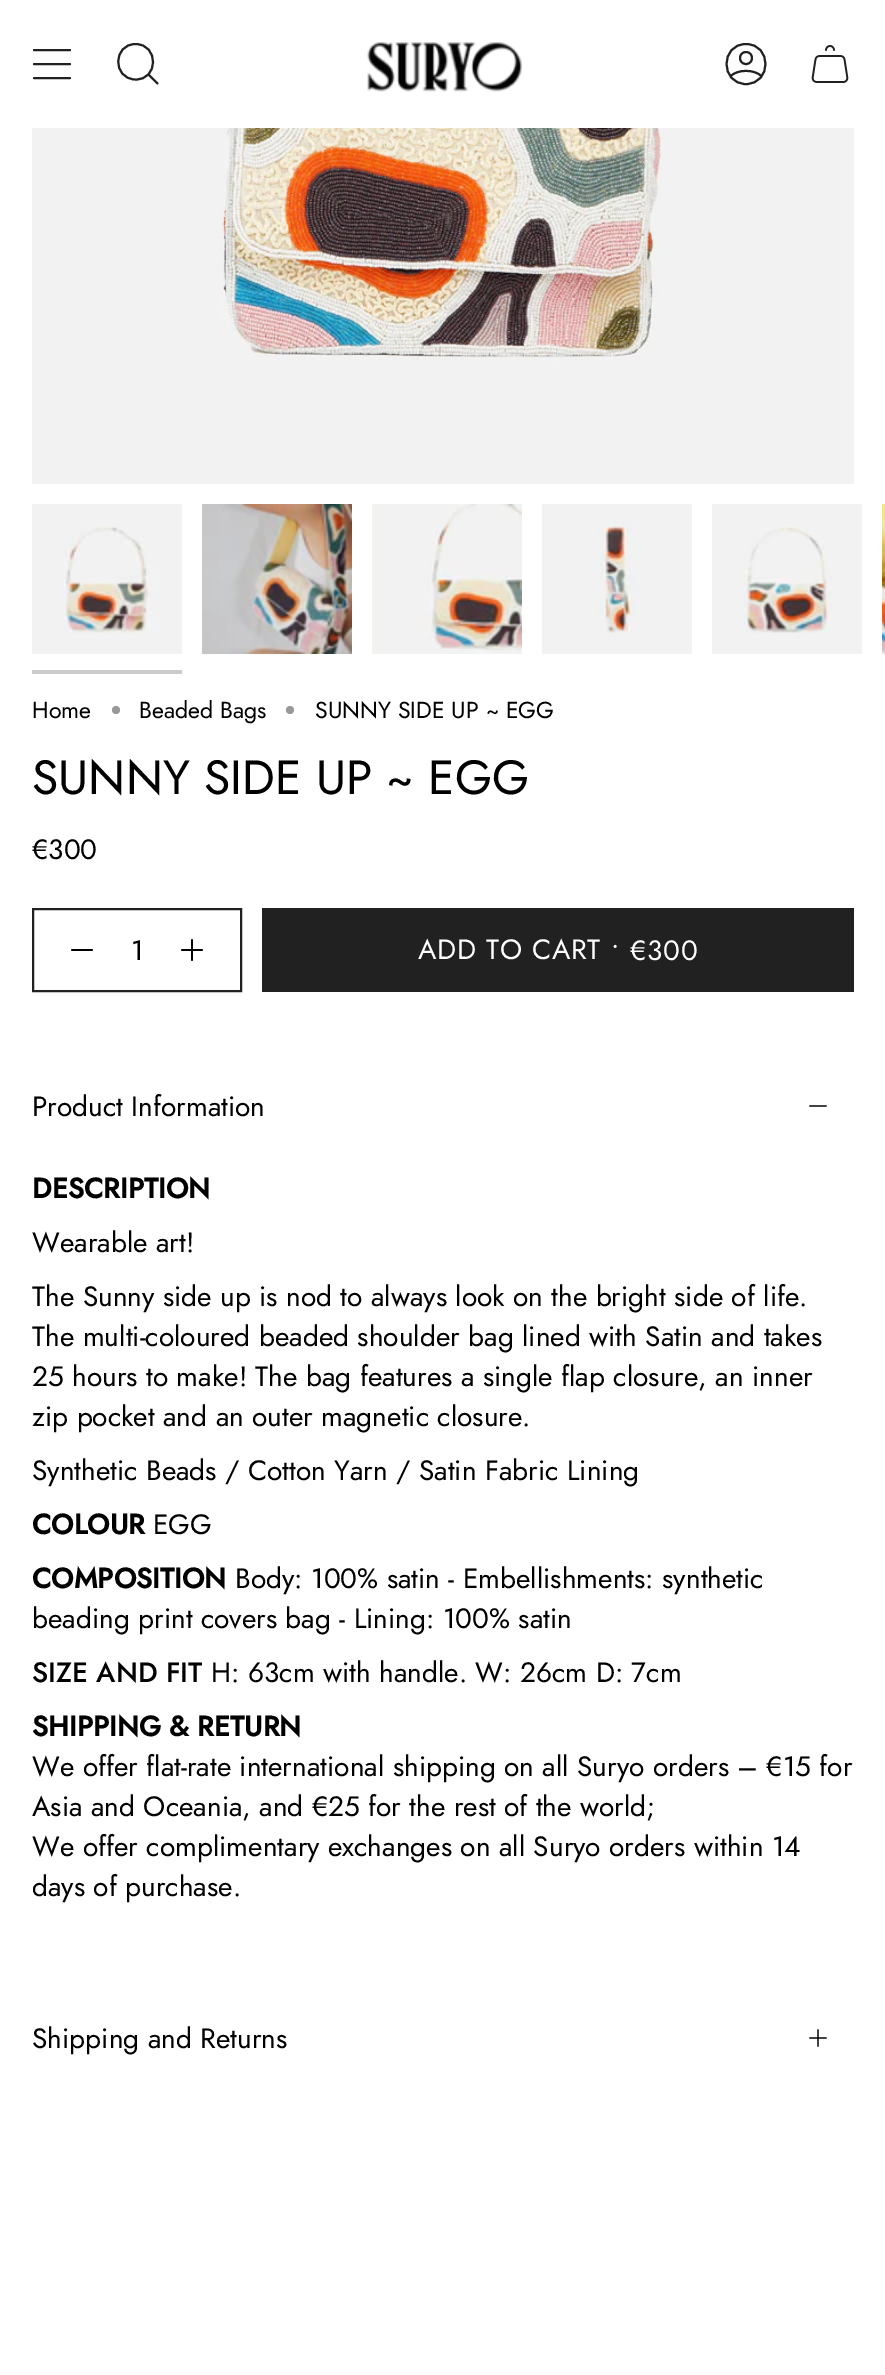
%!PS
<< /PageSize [885 2375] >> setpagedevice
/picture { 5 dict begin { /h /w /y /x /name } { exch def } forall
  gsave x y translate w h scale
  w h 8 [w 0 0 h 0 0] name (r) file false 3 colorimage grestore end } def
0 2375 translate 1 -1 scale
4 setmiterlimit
1 setgray
0 0 885 2375 rectfill
0.129 setgray
2 setlinewidth
1 setlinecap
1 setlinejoin
newpath 34 50 moveto 70 50 lineto 34 64 moveto 70 64 lineto 34 78 moveto 70 78 lineto stroke
0 setlinecap
0 setlinejoin
newpath 135.5 44 moveto 159 44 159 80.5 135 79.5 curveto 112 78.5 113 44 135.5 44 curveto closepath 148 74 moveto 158 84 lineto stroke
(img1.rgb) 367 42 156 50 picture
1 setlinecap
1 setlinejoin
newpath 746 44 moveto 720 44 720 84 746 84 curveto 772 84 772 44 746 44 curveto closepath 730.5 76.5 moveto 736.5 69 755.5 69 761.5 76.5 curveto 746 64 moveto 754 64 754 52 746 52 curveto 738 52 738 64 746 64 curveto closepath stroke
(img2.rgb) 811 45 38 38 picture
(img3.rgb) 32 128 822 356 picture
(img4.rgb) 32 504 150 150 picture
0.8 setgray
32 670 150 4 rectfill
(img5.rgb) 202 504 150 150 picture
(img6.rgb) 372 504 150 150 picture
(img7.rgb) 542 504 150 150 picture
(img8.rgb) 712 504 150 150 picture
(img9.rgb) 882 504 3 150 picture
/Jost-Regular [23.1 0 0 -23.1 0 0] selectfont
0 setgray
32 718 moveto (Home) show
0.6 setgray
newpath 116 710 4 0 360 arc closepath fill
0 setgray
139 718 moveto (Beaded Bags) show
0.6 setgray
newpath 290 710 4 0 360 arc closepath fill
0 setgray
315 718 moveto (SUNNY SIDE UP ~ EGG) show
/Jost-Regular [48 0 0 -48 0 0] selectfont
32 794 moveto (SUNNY SIDE UP ~ EGG) show
/Jost-Regular [28 0 0 -28 0 0] selectfont
32 859 moveto (€300) show
0.129 setgray
0 setlinecap
0 setlinejoin
33 909 208 82 rectstroke
0 setgray
1.7 setlinewidth
1 setlinecap
1 setlinejoin
newpath 72 950 moveto 92 950 lineto stroke
131 960 moveto (1) show
newpath 182 950 moveto 192 950 lineto 202 950 moveto 192 950 lineto 192 950 moveto 192 940 lineto 192 950 moveto 192 960 lineto stroke
0.129 setgray
262 908 592 84 rectfill
1 setgray
418 959 moveto 0.75 0 (ADD TO CART) ashow
611 958 moveto 0.75 0 (•) ashow
630 960 moveto 0.75 0 (€300) ashow
0 setgray
32 1116 moveto (Product Information) show
1.3 setlinewidth
newpath 810 1106 moveto 826 1106 lineto stroke
/Jost-Bold [28 0 0 -28 0 0] selectfont
32 1198 moveto (DESCRIPTION) show
/Jost-Regular [28 0 0 -28 0 0] selectfont
32 1252 moveto (Wearable art!) show
32 1306 moveto (The Sunny side up is nod to always look on the bright side of life.) show
32 1346 moveto (The multi-coloured beaded shoulder bag lined with Satin and takes) show
32 1386 moveto (25 hours to make! The bag features a single flap closure, an inner) show
32 1426 moveto (zip pocket and an outer magnetic closure.) show
32 1480 moveto (Synthetic Beads / Cotton Yarn / Satin Fabric Lining) show
/Jost-Bold [28 0 0 -28 0 0] selectfont
32 1534 moveto (COLOUR) show
/Jost-Regular [28 0 0 -28 0 0] selectfont
153 1534 moveto (EGG) show
/Jost-Bold [28 0 0 -28 0 0] selectfont
32 1588 moveto (COMPOSITION) show
/Jost-Regular [28 0 0 -28 0 0] selectfont
235 1588 moveto (Body: 100% satin - Embellishments: synthetic) show
32 1628 moveto (beading print covers bag - Lining: 100% satin) show
/Jost-Medium [28 0 0 -28 0 0] selectfont
32 1682 moveto (SIZE AND FIT) show
/Jost-Regular [28 0 0 -28 0 0] selectfont
211 1682 moveto (H: 63cm with handle. W: 26cm D: 7cm) show
/Jost-Bold [28 0 0 -28 0 0] selectfont
32 1736 moveto (SHIPPING & RETURN) show
/Jost-Regular [28 0 0 -28 0 0] selectfont
32 1776 moveto (We offer flat-rate international shipping on all Suryo orders – €15 for) show
32 1816 moveto (Asia and Oceania, and €25 for the rest of the world;) show
32 1856 moveto (We offer complimentary exchanges on all Suryo orders within 14) show
32 1896 moveto (days of purchase.) show
32 2048 moveto (Shipping and Returns) show
newpath 810 2038 moveto 818 2038 lineto 826 2038 moveto 818 2038 lineto 818 2038 moveto 818 2030 lineto 818 2038 moveto 818 2046 lineto stroke
showpage
